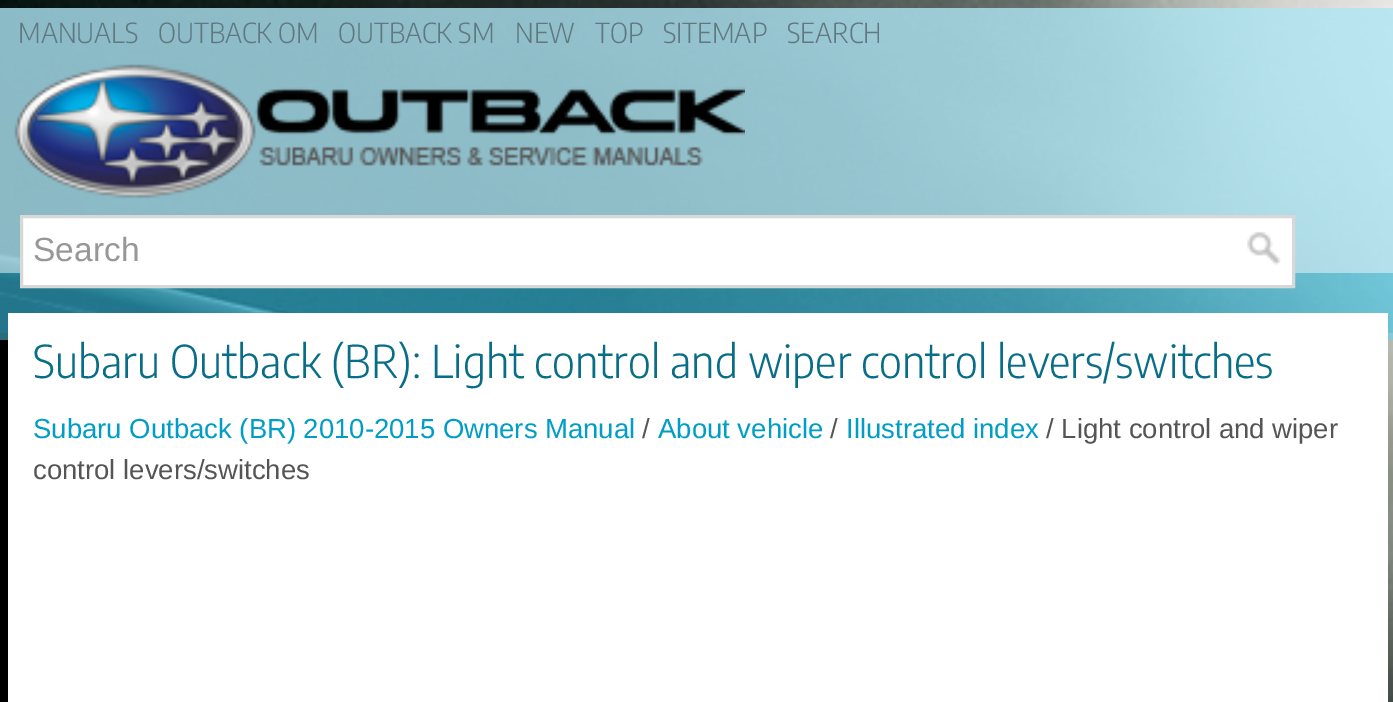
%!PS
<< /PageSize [1393 702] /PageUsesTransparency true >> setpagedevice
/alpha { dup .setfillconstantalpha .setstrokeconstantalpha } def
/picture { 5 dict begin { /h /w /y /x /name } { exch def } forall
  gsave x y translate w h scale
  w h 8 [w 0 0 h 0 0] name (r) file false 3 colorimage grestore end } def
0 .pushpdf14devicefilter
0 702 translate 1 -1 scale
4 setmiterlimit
1 setgray
0 0 1393 702 rectfill
(img1.rgb) 0 0 1393 702 picture
0.5 alpha
0.329 0.839 0.973 setrgbcolor
0 8 1393 332 rectfill
0.2 alpha
0 0.616 0.776 setrgbcolor
0 8 1393 325 rectfill
0.5 alpha
0.953 0.976 0.984 setrgbcolor
0 8 1393 265 rectfill
/EncodeSansSemiCondensed-Light [27.5 0 0 -27.5 0 0] selectfont
1 alpha
0.376 0.475 0.506 setrgbcolor
18 43 moveto (MANUALS) show
158 43 moveto (OUTBACK OM) show
338 43 moveto (OUTBACK SM) show
515 43 moveto (NEW) show
595 43 moveto (TOP) show
663 43 moveto (SITEMAP) show
787 43 moveto (SEARCH) show
(img2.rgb) 14 64 731 135 picture
1 setgray
newpath 21.5 216.5 moveto 1293.5 216.5 lineto 1293.5 286.5 lineto 21.5 286.5 lineto closepath gsave fill grestore
0.847 setgray
3 setlinewidth
stroke
/LiberationSans-Regular [33.5 0 0 -33.5 0 0] selectfont
0.592 setgray
33 261 moveto (Search) show
(img3.rgb) 1247 231 34 35 picture
1 setgray
8 313 1380 389 rectfill
/EncodeSansSemiCondensed-Light [45 0 0 -45 0 0] selectfont
0.031 0.427 0.529 setrgbcolor
33 378 moveto (Subaru Outback \(BR\): Light control and wiper control levers/switches) show
/LiberationSans-Regular [27.5 0 0 -27.5 0 0] selectfont
0 0.616 0.776 setrgbcolor
33 438 moveto (Subaru Outback \(BR\) 2010-2015 Owners Manual) show
0.333 setgray
642 438 moveto (/) show
0 0.616 0.776 setrgbcolor
658 438 moveto (About vehicle) show
0.333 setgray
830 438 moveto (/) show
0 0.616 0.776 setrgbcolor
846 438 moveto (Illustrated index) show
0.333 setgray
1046 438 moveto (/ Light control and wiper) show
33 479 moveto (control levers/switches) show
.poppdf14devicefilter showpage
